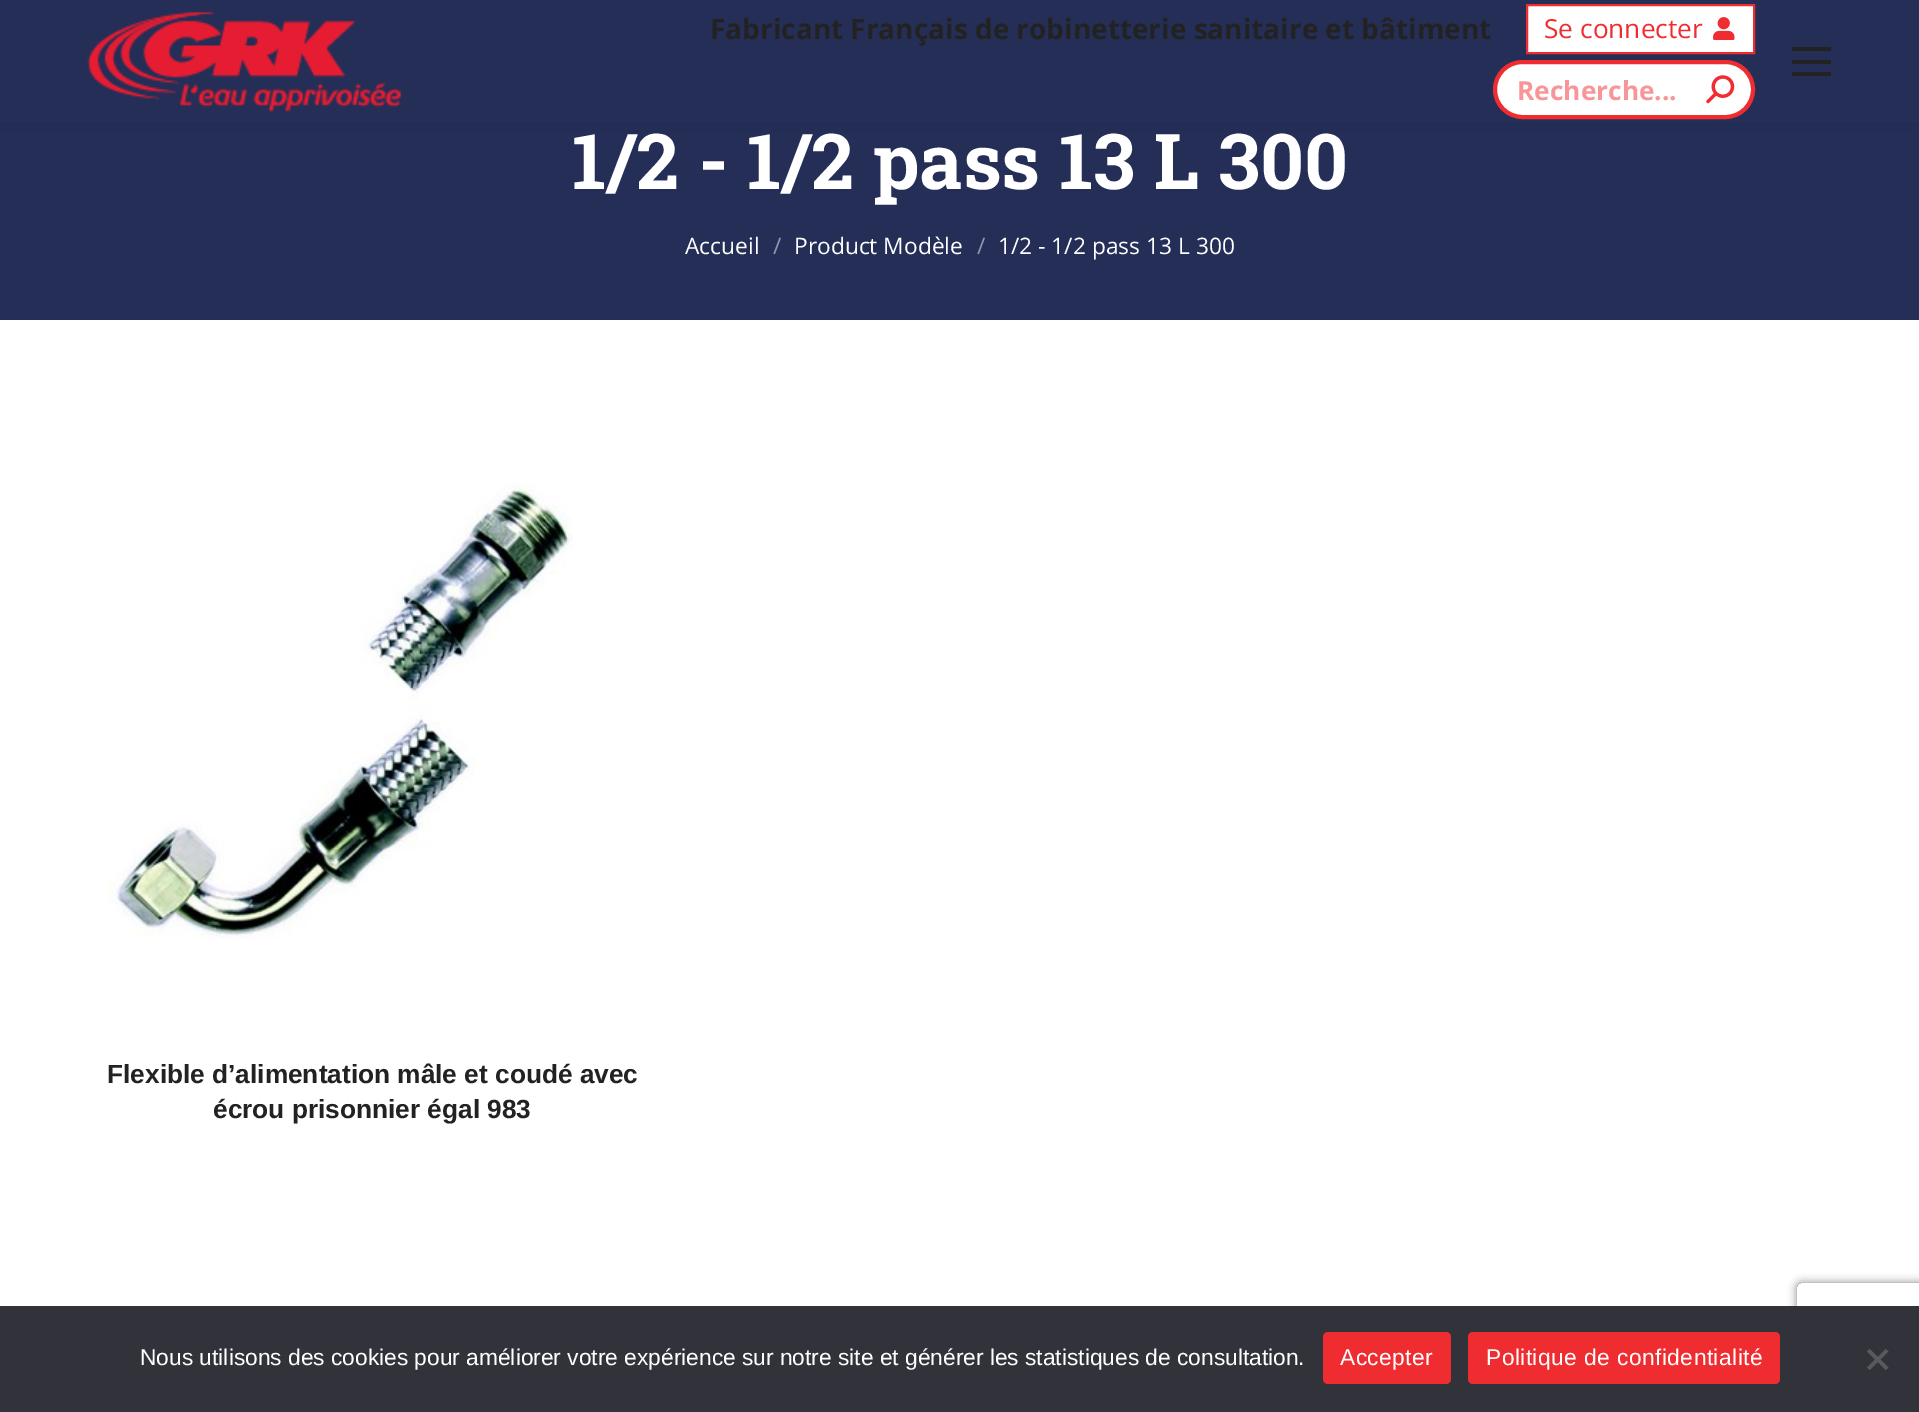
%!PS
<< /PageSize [1919 1412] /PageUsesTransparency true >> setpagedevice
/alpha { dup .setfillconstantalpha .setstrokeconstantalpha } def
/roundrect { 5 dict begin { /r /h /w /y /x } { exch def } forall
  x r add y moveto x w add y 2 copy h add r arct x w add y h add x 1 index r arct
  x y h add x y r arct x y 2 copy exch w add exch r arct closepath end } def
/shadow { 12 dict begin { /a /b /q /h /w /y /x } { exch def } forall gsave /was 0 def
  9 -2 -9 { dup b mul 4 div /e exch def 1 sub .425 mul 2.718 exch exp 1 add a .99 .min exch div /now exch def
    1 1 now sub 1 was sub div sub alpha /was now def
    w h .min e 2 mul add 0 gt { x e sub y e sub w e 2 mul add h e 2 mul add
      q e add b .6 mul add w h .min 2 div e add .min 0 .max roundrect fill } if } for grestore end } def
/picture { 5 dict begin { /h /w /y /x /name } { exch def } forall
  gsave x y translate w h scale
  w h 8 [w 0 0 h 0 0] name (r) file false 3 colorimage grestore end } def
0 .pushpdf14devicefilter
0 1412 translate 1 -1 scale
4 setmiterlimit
1 setgray
0 0 1919 1412 rectfill
0.141 0.18 0.341 setrgbcolor
0 123 1919 197 rectfill
0 setgray
-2 -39 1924 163 0 13 0.07 shadow
0.141 0.18 0.341 setrgbcolor
0 0 1919 123 rectfill
(img1.rgb) 87 11 314 101 picture
/OpenSans-Bold [28 0 0 -28 0 0] selectfont
0.133 setgray
710 39 moveto (Fabricant Français de robinetterie sanitaire et bâtiment) show
1 setgray
newpath 1527 5 moveto 1754 5 lineto 1754 53 lineto 1527 53 lineto closepath gsave fill grestore
0.937 0.173 0.188 setrgbcolor
2 setlinewidth
stroke
/OpenSans-Regular [26.25 0 0 -26.25 0 0] selectfont
1544 38 moveto (Se connecter) show
(img2.rgb) 1713 17 22 23 picture
1 setgray
1495 62 258 55 27.5 roundrect gsave fill grestore
0.937 0.173 0.188 setrgbcolor
4 setlinewidth
stroke
/OpenSans-Bold [26.25 0 0 -26.25 0 0] selectfont
0.969 0.588 0.596 setrgbcolor
1517 100 moveto (Recherche...) show
(img3.rgb) 1706 75 29 29 picture
0.133 setgray
1792 47 39 4 rectfill
1792 60 39 4 rectfill
1792 72 39 4 rectfill
/RobotoSlab-Bold [77 0 0 -77 0 0] selectfont
1 setgray
572 189 moveto (1/2 - 1/2 pass 13 L 300) show
/OpenSans-Regular [22.75 0 0 -22.75 0 0] selectfont
685 254 moveto (Accueil) show
0.573 0.592 0.671 setrgbcolor
773 254 moveto (/) show
1 setgray
794 254 moveto (Product Modèle) show
0.573 0.592 0.671 setrgbcolor
977 254 moveto (/) show
1 setgray
998 254 moveto (1/2 - 1/2 pass 13 L 300) show
(img4.rgb) 107 483 466 456 picture
/LiberationSans-Bold [26.25 0 0 -26.25 0 0] selectfont
0.133 setgray
107 1083 moveto (Flexible d’alimentation mâle et coudé avec) show
213 1118 moveto (écrou prisonnier égal 983) show
gsave
newpath 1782 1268 moveto 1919 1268 lineto 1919 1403 lineto 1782 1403 lineto closepath 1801 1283 moveto 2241 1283 lineto 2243 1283 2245 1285 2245 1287 curveto 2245 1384 lineto 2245 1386 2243 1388 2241 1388 curveto 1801 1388 lineto 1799 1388 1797 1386 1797 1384 curveto 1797 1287 lineto 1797 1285 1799 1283 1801 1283 curveto closepath eoclip newpath
0.502 setgray
1797 1283 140 105 4 4.5 1 shadow
grestore
0.196 0.196 0.227 setrgbcolor
0 1306 1919 106 rectfill
/LiberationSans-Regular [22.75 0 0 -22.75 0 0] selectfont
1 setgray
140 1365 moveto (Nous utilisons des cookies pour améliorer votre expérience sur notre site et générer les statistiques de consultation.) show
0.937 0.173 0.188 setrgbcolor
1323 1332 128 52 5 roundrect fill
1 setgray
1340 1365 moveto 0.45 0 (Accepter) ashow
0.937 0.173 0.188 setrgbcolor
1468 1332 312 52 5 roundrect fill
1 setgray
1486 1365 moveto 0.45 0 (Politique de confidentialité) ashow
0.349 0.349 0.365 setrgbcolor
newpath 1886 1349 moveto 1888.5 1351.5 lineto 1869.5 1370 lineto 1867 1367.5 lineto closepath fill
newpath 1867 1351.5 moveto 1869.5 1349 lineto 1888.5 1367.5 lineto 1886 1370 lineto closepath fill
.poppdf14devicefilter showpage
